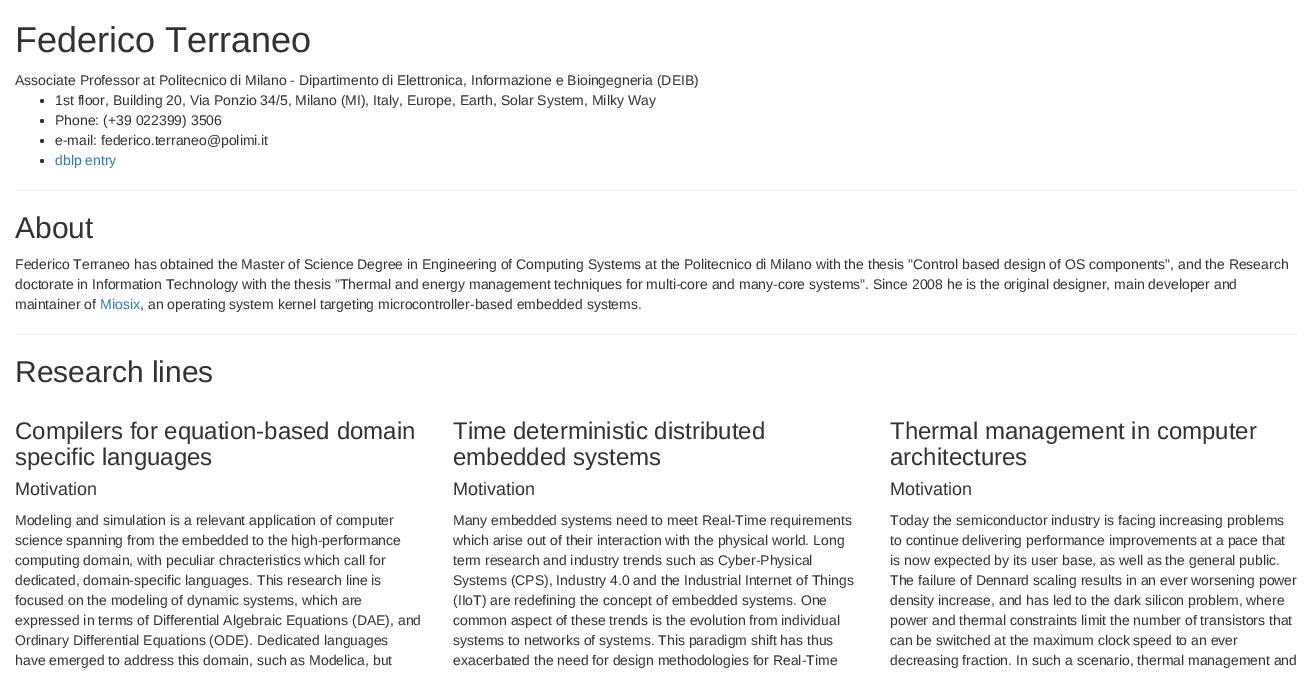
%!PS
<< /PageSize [1313 673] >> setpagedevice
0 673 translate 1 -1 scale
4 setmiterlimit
1 setgray
0 0 1313 673 rectfill
/LiberationSans-Regular [36 0 0 -36 0 0] selectfont
0.2 setgray
15 52 moveto (Federico Terraneo) show
/LiberationSans-Regular [14 0 0 -14 0 0] selectfont
15 85 moveto (Associate Professor at Politecnico di Milano - Dipartimento di Elettronica, Informazione e Bioingegneria \(DEIB\)) show
newpath 42 101 2 0 360 arc closepath fill
55 105 moveto (1st floor, Building 20, Via Ponzio 34/5, Milano \(MI\), Italy, Europe, Earth, Solar System, Milky Way) show
newpath 42 121 2 0 360 arc closepath fill
55 125 moveto (Phone: \(+39 022399\) 3506) show
newpath 42 141 2 0 360 arc closepath fill
55 145 moveto (e-mail: federico.terraneo@polimi.it) show
newpath 42 161 2 0 360 arc closepath fill
0.2 0.478 0.718 setrgbcolor
55 165 moveto (dblp entry) show
0.933 setgray
15 190 1283 1 rectfill
/LiberationSans-Regular [30 0 0 -30 0 0] selectfont
0.2 setgray
15 238 moveto (About) show
/LiberationSans-Regular [14 0 0 -14 0 0] selectfont
15 269 moveto (Federico Terraneo has obtained the Master of Science Degree in Engineering of Computing Systems at the Politecnico di Milano with the thesis "Control based design of OS components", and the Research) show
15 289 moveto (doctorate in Information Technology with the thesis "Thermal and energy management techniques for multi-core and many-core systems". Since 2008 he is the original designer, main developer and) show
15 309 moveto (maintainer of) show
0.2 0.478 0.718 setrgbcolor
100 309 moveto (Miosix) show
0.2 setgray
140 309 moveto (, an operating system kernel targeting microcontroller-based embedded systems.) show
0.933 setgray
15 334 1283 1 rectfill
/LiberationSans-Regular [30 0 0 -30 0 0] selectfont
0.2 setgray
15 382 moveto (Research lines) show
/LiberationSans-Regular [24 0 0 -24 0 0] selectfont
15 439 moveto (Compilers for equation-based domain) show
15 465 moveto (specific languages) show
/LiberationSans-Regular [18 0 0 -18 0 0] selectfont
15 495 moveto (Motivation) show
/LiberationSans-Regular [14 0 0 -14 0 0] selectfont
15 525 moveto (Modeling and simulation is a relevant application of computer) show
15 545 moveto (science spanning from the embedded to the high-performance) show
15 565 moveto (computing domain, with peculiar chracteristics which call for) show
15 585 moveto (dedicated, domain-specific languages. This research line is) show
15 605 moveto (focused on the modeling of dynamic systems, which are) show
15 625 moveto (expressed in terms of Differential Algebraic Equations \(DAE\), and) show
15 645 moveto (Ordinary Differential Equations \(ODE\). Dedicated languages) show
15 665 moveto (have emerged to address this domain, such as Modelica, but) show
/LiberationSans-Regular [24 0 0 -24 0 0] selectfont
453 439 moveto (Time deterministic distributed) show
453 465 moveto (embedded systems) show
/LiberationSans-Regular [18 0 0 -18 0 0] selectfont
453 495 moveto (Motivation) show
/LiberationSans-Regular [14 0 0 -14 0 0] selectfont
453 525 moveto (Many embedded systems need to meet Real-Time requirements) show
453 545 moveto (which arise out of their interaction with the physical world. Long) show
453 565 moveto (term research and industry trends such as Cyber-Physical) show
453 585 moveto (Systems \(CPS\), Industry 4.0 and the Industrial Internet of Things) show
453 605 moveto (\(IIoT\) are redefining the concept of embedded systems. One) show
453 625 moveto (common aspect of these trends is the evolution from individual) show
453 645 moveto (systems to networks of systems. This paradigm shift has thus) show
453 665 moveto (exacerbated the need for design methodologies for Real-Time) show
/LiberationSans-Regular [24 0 0 -24 0 0] selectfont
890 439 moveto (Thermal management in computer) show
890 465 moveto (architectures) show
/LiberationSans-Regular [18 0 0 -18 0 0] selectfont
890 495 moveto (Motivation) show
/LiberationSans-Regular [14 0 0 -14 0 0] selectfont
890 525 moveto (Today the semiconductor industry is facing increasing problems) show
890 545 moveto (to continue delivering performance improvements at a pace that) show
890 565 moveto (is now expected by its user base, as well as the general public.) show
890 585 moveto (The failure of Dennard scaling results in an ever worsening power) show
890 605 moveto (density increase, and has led to the dark silicon problem, where) show
890 625 moveto (power and thermal constraints limit the number of transistors that) show
890 645 moveto (can be switched at the maximum clock speed to an ever) show
890 665 moveto (decreasing fraction. In such a scenario, thermal management and) show
showpage
